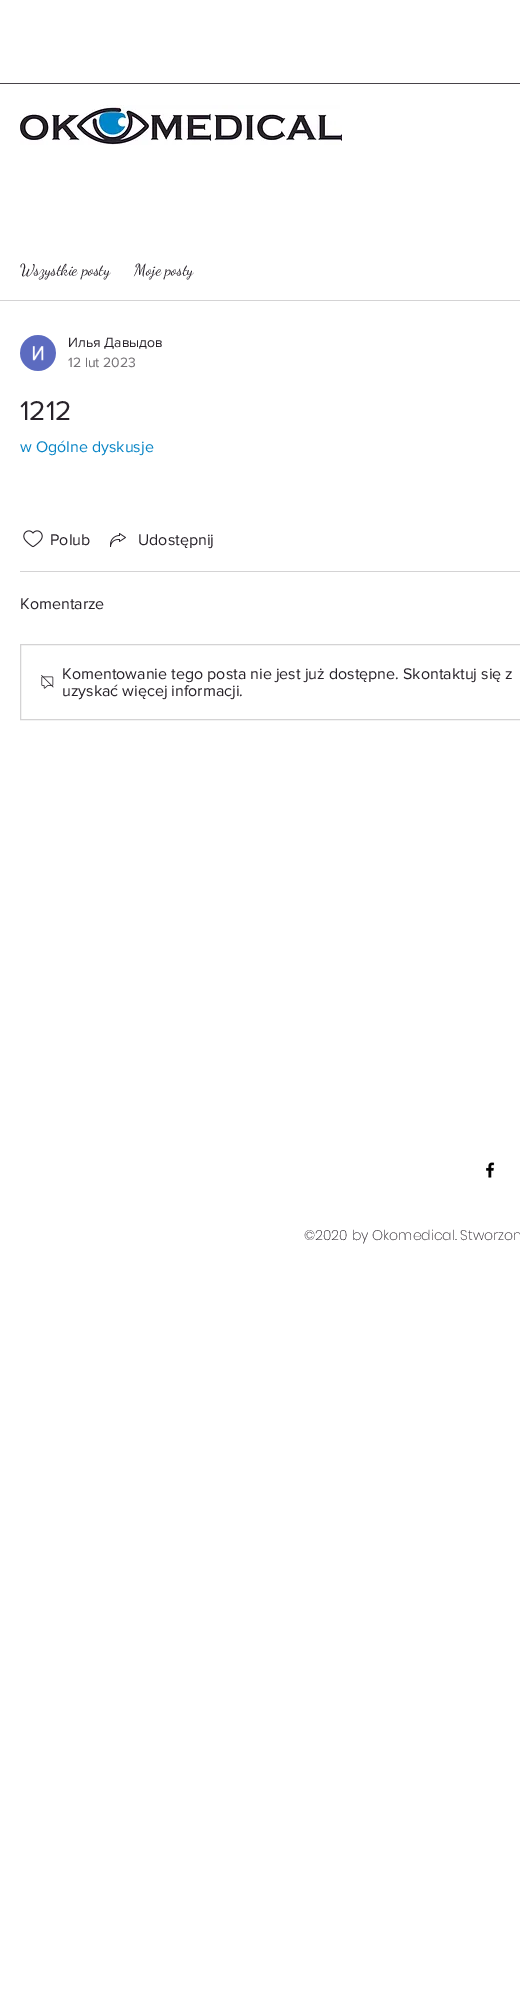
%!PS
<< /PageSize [520 1996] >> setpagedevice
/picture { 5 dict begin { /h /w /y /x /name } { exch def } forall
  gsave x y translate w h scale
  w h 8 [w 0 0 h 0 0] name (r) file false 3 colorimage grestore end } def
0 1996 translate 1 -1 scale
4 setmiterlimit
1 setgray
0 0 520 1996 rectfill
0.278 0.263 0.286 setrgbcolor
0 83 520 1 rectfill
(img1.rgb) 20 105 322 40 picture
0.831 0.827 0.831 setrgbcolor
0 300 520 1 rectfill
/DancingScript-Regular [16 0 0 -16 0 0] selectfont
0.153 0.133 0.161 setrgbcolor
20 275 moveto (Wszystkie posty) show
134 275 moveto (Moje posty) show
(img2.rgb) 20 335 36 36 picture
/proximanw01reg-Regular [14 0 0 -14 0 0] selectfont
68 347 moveto (Илья Давыдов) show
0.459 0.447 0.463 setrgbcolor
68 367 moveto (12 lut 2023) show
/proximanw01reg-Regular [28 0 0 -28 0 0] selectfont
0.153 0.133 0.161 setrgbcolor
20 420 moveto (1212) show
/proximanw01reg-Regular [16 0 0 -16 0 0] selectfont
0.031 0.522 0.776 setrgbcolor
20 452 moveto (w Ogólne dyskusje) show
(img3.rgb) 23 530 20 18 picture
0.153 0.133 0.161 setrgbcolor
50 545 moveto (Polub) show
(img4.rgb) 110 533 16 14 picture
138 545 moveto (Udostępnij) show
0.831 0.827 0.831 setrgbcolor
20 571 500 1 rectfill
0.153 0.133 0.161 setrgbcolor
20 609 moveto (Komentarze) show
0.831 0.827 0.831 setrgbcolor
20.5 644.5 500 75 rectstroke
(img5.rgb) 41 675 13 14 picture
0.153 0.133 0.161 setrgbcolor
62 679 moveto (Komentowanie tego posta nie jest już dostępne. Skontaktuj się z) show
62 696 moveto (uzyskać więcej informacji.) show
(img6.rgb) 486 1162 9 16 picture
/Poppins-ExtraLight [14 0 0 -14 0 0] selectfont
304 1240 moveto (©2020 by Okomedical. Stworzon) show
showpage
